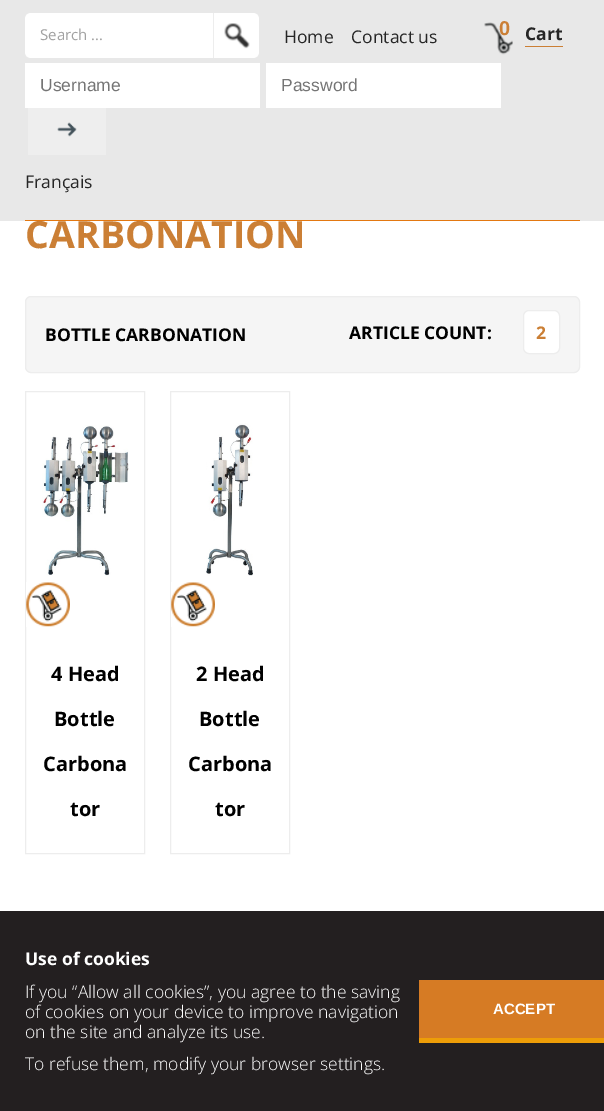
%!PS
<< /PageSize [604 1111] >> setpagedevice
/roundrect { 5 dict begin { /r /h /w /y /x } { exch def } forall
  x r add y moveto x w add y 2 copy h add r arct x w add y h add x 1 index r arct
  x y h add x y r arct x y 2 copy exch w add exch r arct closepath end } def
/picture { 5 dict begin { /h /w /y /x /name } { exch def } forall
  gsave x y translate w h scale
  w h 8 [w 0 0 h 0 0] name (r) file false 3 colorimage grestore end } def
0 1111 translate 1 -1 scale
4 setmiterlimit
1 setgray
0 0 604 1111 rectfill
/OpenSans-Bold [37.5 0 0 -37.5 0 0] selectfont
0.796 0.498 0.208 setrgbcolor
25 248 moveto (CARBONATION) show
0.91 setgray
0 0 604 221 rectfill
0.89 0.471 0.067 setrgbcolor
25 220 555 1 rectfill
1 setgray
newpath 31 13 moveto 213 13 lineto 213 58 lineto 31 58 lineto 27.5 58 25 55.5 25 52 curveto 25 19 lineto 25 15.5 27.5 13 31 13 curveto closepath fill
/OpenSans-Regular [15 0 0 -15 0 0] selectfont
0.631 setgray
40 40 moveto (Search ...) show
1 setgray
newpath 213 13 moveto 253 13 lineto 256.5 13 259 15.5 259 19 curveto 259 52 lineto 259 55.5 256.5 58 253 58 curveto 213 58 lineto closepath fill
0.929 setgray
213 13 1 45 rectfill
(img1.rgb) 224 23 26 26 picture
/OpenSans-Regular [17.5 0 0 -17.5 0 0] selectfont
0.149 setgray
284 43 moveto (Home) show
351 43 moveto (Contact us) show
(img2.rgb) 484 22 29 33 picture
/LiberationSans-Bold [20 0 0 -20 0 0] selectfont
0.796 0.498 0.208 setrgbcolor
499 35 moveto (0) show
525 46 38 1 rectfill
/OpenSans-Bold [17.5 0 0 -17.5 0 0] selectfont
0.149 setgray
525 40 moveto (Cart) show
1 setgray
25 63 235 45 rectfill
/LiberationSans-Regular [17.5 0 0 -17.5 0 0] selectfont
0.459 setgray
40 91 moveto (Username) show
1 setgray
266 63 235 45 rectfill
0.459 setgray
281 91 moveto (Password) show
0.933 setgray
28 108 78 47 rectfill
(img3.rgb) 57 122 20 15 picture
/OpenSans-Regular [17.5 0 0 -17.5 0 0] selectfont
0.149 setgray
25 188 moveto (Français) show
0.961 setgray
25.5 296.5 554 76 5.5 roundrect gsave fill grestore
0.929 setgray
stroke
/OpenSans-Bold [17.5 0 0 -17.5 0 0] selectfont
0 setgray
45 341 moveto (BOTTLE CARBONATION) show
349 339 moveto (ARTICLE COUNT:) show
1 setgray
523.5 310.5 36 43 5.5 roundrect gsave fill grestore
0.929 setgray
stroke
0.796 0.498 0.208 setrgbcolor
536 339 moveto (2) show
0.929 setgray
25.5 391.5 119 462 rectstroke
(img4.rgb) 42 425 87 151 picture
(img5.rgb) 26 582 44 45 picture
/OpenSans-Bold [20 0 0 -20 0 0] selectfont
0 setgray
51 681 moveto (4 Head) show
54 726 moveto (Bottle) show
43 771 moveto (Carbona) show
70 816 moveto (tor) show
0.929 setgray
170.5 391.5 119 462 rectstroke
(img6.rgb) 206 423 47 153 picture
(img5.rgb) 171 582 44 45 picture
0 setgray
196 681 moveto (2 Head) show
199 726 moveto (Bottle) show
188 771 moveto (Carbona) show
215 816 moveto (tor) show
0.137 0.122 0.125 setrgbcolor
0 911 604 200 rectfill
/OpenSans-Bold [17.5 0 0 -17.5 0 0] selectfont
1 setgray
25 965 moveto (Use of cookies) show
/OpenSans-Light [17.5 0 0 -17.5 0 0] selectfont
25 998 moveto (If you “Allow all cookies”, you agree to the saving) show
25 1018 moveto (of cookies on your device to improve navigation) show
25 1038 moveto (on the site and analyze its use.) show
25 1070 moveto (To refuse them, modify your browser settings.) show
0.839 0.482 0.141 setrgbcolor
419 980 185 58 rectfill
0.929 0.616 0.031 setrgbcolor
419 1038 185 5 rectfill
/LiberationSans-Bold [15 0 0 -15 0 0] selectfont
1 setgray
493 1014 moveto (ACCEPT) show
showpage
